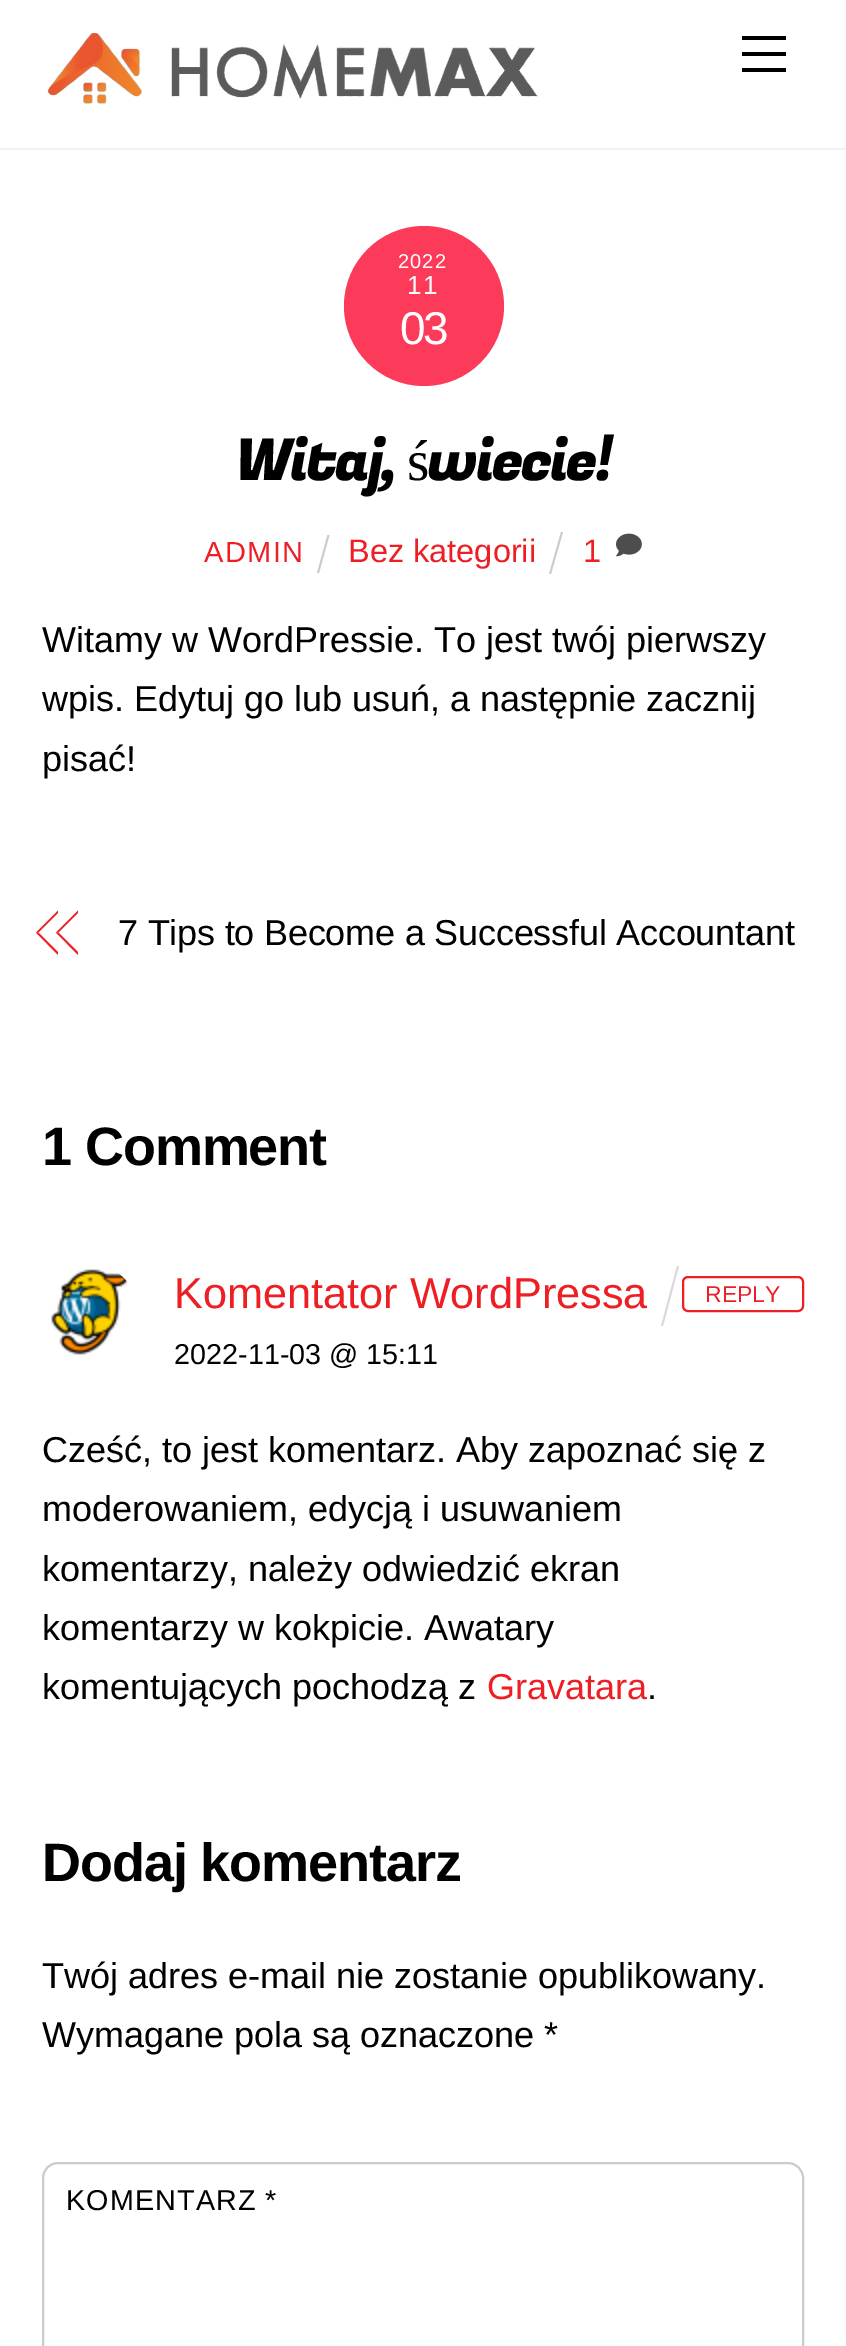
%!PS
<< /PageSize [846 2346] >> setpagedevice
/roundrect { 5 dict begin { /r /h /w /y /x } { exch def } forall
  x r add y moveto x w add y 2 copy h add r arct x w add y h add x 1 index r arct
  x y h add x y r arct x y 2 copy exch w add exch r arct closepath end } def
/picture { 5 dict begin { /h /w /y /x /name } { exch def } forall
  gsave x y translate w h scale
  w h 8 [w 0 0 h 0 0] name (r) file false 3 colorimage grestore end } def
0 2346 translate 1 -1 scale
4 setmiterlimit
1 setgray
0 0 846 2346 rectfill
0.949 setgray
0 148 846 2 rectfill
(img1.rgb) 47 33 491 71 picture
0 setgray
742 68 44 4 rectfill
742 36 44 4 rectfill
742 52 44 4 rectfill
0.988 0.227 0.349 setrgbcolor
newpath 424 306 80 0 360 arc closepath fill
/LiberationSans-Regular [20 0 0 -20 0 0] selectfont
1 setgray
398 268 moveto 1.1 0 (2022) ashow
/LiberationSans-Regular [26 0 0 -26 0 0] selectfont
407 294 moveto 1.1 0 (11) ashow
/LiberationSans-Regular [46 0 0 -46 0 0] selectfont
400 344 moveto -2.25 0 (03) ashow
/FugazOne-Regular [57.5 0 0 -57.5 0 0] selectfont
0 setgray
235 480 moveto -2.25 0 (Witaj,) ashow
/LiberationSerif-Regular [57.5 0 0 -57.5 0 0] selectfont
407 480 moveto -2.25 0 (ś) ashow
/FugazOne-Regular [57.5 0 0 -57.5 0 0] selectfont
427 480 moveto -2.25 0 (wiecie!) ashow
/LiberationSans-Regular [29 0 0 -29 0 0] selectfont
0.929 0.118 0.141 setrgbcolor
204 562 moveto 1.5 0 (ADMIN) ashow
0.8 setgray
newpath 327.5 535 moveto 329.5 535 lineto 319 573 lineto 317 573 lineto closepath fill
/LiberationSans-Regular [32.5 0 0 -32.5 0 0] selectfont
0.929 0.118 0.141 setrgbcolor
348 562 moveto (Bez kategorii) show
0.8 setgray
newpath 561 532 moveto 563 532 lineto 551 574 lineto 549 574 lineto closepath fill
0.929 0.118 0.141 setrgbcolor
583 562 moveto (1) show
(img2.rgb) 616 533 26 24 picture
/LiberationSans-Regular [36 0 0 -36 0 0] selectfont
0 setgray
42 652 moveto (Witamy w WordPressie. To jest twój pierwszy) show
42 711 moveto (wpis. Edytuj go lub usuń, a następnie zacznij) show
42 771 moveto (pisać!) show
0.929 0.118 0.141 setrgbcolor
newpath 36 932.5 moveto 58 910.5 lineto 58 913 lineto 38.5 932.5 lineto closepath fill
newpath 58 955 moveto 36 932.5 lineto 38.5 932.5 lineto 58 952 lineto closepath fill
newpath 56 932.5 moveto 78 910.5 lineto 78 913 lineto 58.5 932.5 lineto closepath fill
newpath 78 955 moveto 56 932.5 lineto 58.5 932.5 lineto 78 952 lineto closepath fill
0 setgray
118 945 moveto -0.2 0 (7 Tips to Become a Successful Accountant) ashow
/LiberationSans-Bold [54 0 0 -54 0 0] selectfont
42 1165 moveto -1.1 0 (1 Comment) ashow
(img3.rgb) 51 1269 77 86 picture
/LiberationSans-Regular [43.25 0 0 -43.25 0 0] selectfont
0.929 0.118 0.141 setrgbcolor
174 1308 moveto (Komentator WordPressa) show
0.851 setgray
newpath 677 1266 moveto 679 1266 lineto 663 1326 lineto 661 1326 lineto closepath fill
/LiberationSans-Regular [28.75 0 0 -28.75 0 0] selectfont
0 setgray
174 1364 moveto (2022-11-03 @ 15:11) show
0.929 0.118 0.141 setrgbcolor
2 setlinewidth
683 1277 120 34 5 roundrect stroke
/LiberationSans-Regular [23 0 0 -23 0 0] selectfont
705 1302 moveto (REPLY) show
/LiberationSans-Regular [36 0 0 -36 0 0] selectfont
0 setgray
42 1462 moveto (Cześć, to jest komentarz. Aby zapoznać się z) show
42 1521 moveto (moderowaniem, edycją i usuwaniem) show
42 1581 moveto (komentarzy, należy odwiedzić ekran) show
42 1640 moveto (komentarzy w kokpicie. Awatary) show
42 1699 moveto (komentujących pochodzą z) show
0.929 0.118 0.141 setrgbcolor
487 1699 moveto (Gravatara) show
0 setgray
647 1699 moveto (.) show
/LiberationSans-Bold [54 0 0 -54 0 0] selectfont
42 1881 moveto -1.1 0 (Dodaj komentarz) ashow
/LiberationSans-Regular [36 0 0 -36 0 0] selectfont
42 1988 moveto (Twój adres e-mail nie zostanie opublikowany.) show
42 2047 moveto (Wymagane pola są oznaczone *) show
0.8 setgray
43 2163 760 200 15 roundrect stroke
/LiberationSans-Regular [28.75 0 0 -28.75 0 0] selectfont
0 setgray
66 2210 moveto 1.1 0 (KOMENTARZ *) ashow
showpage
